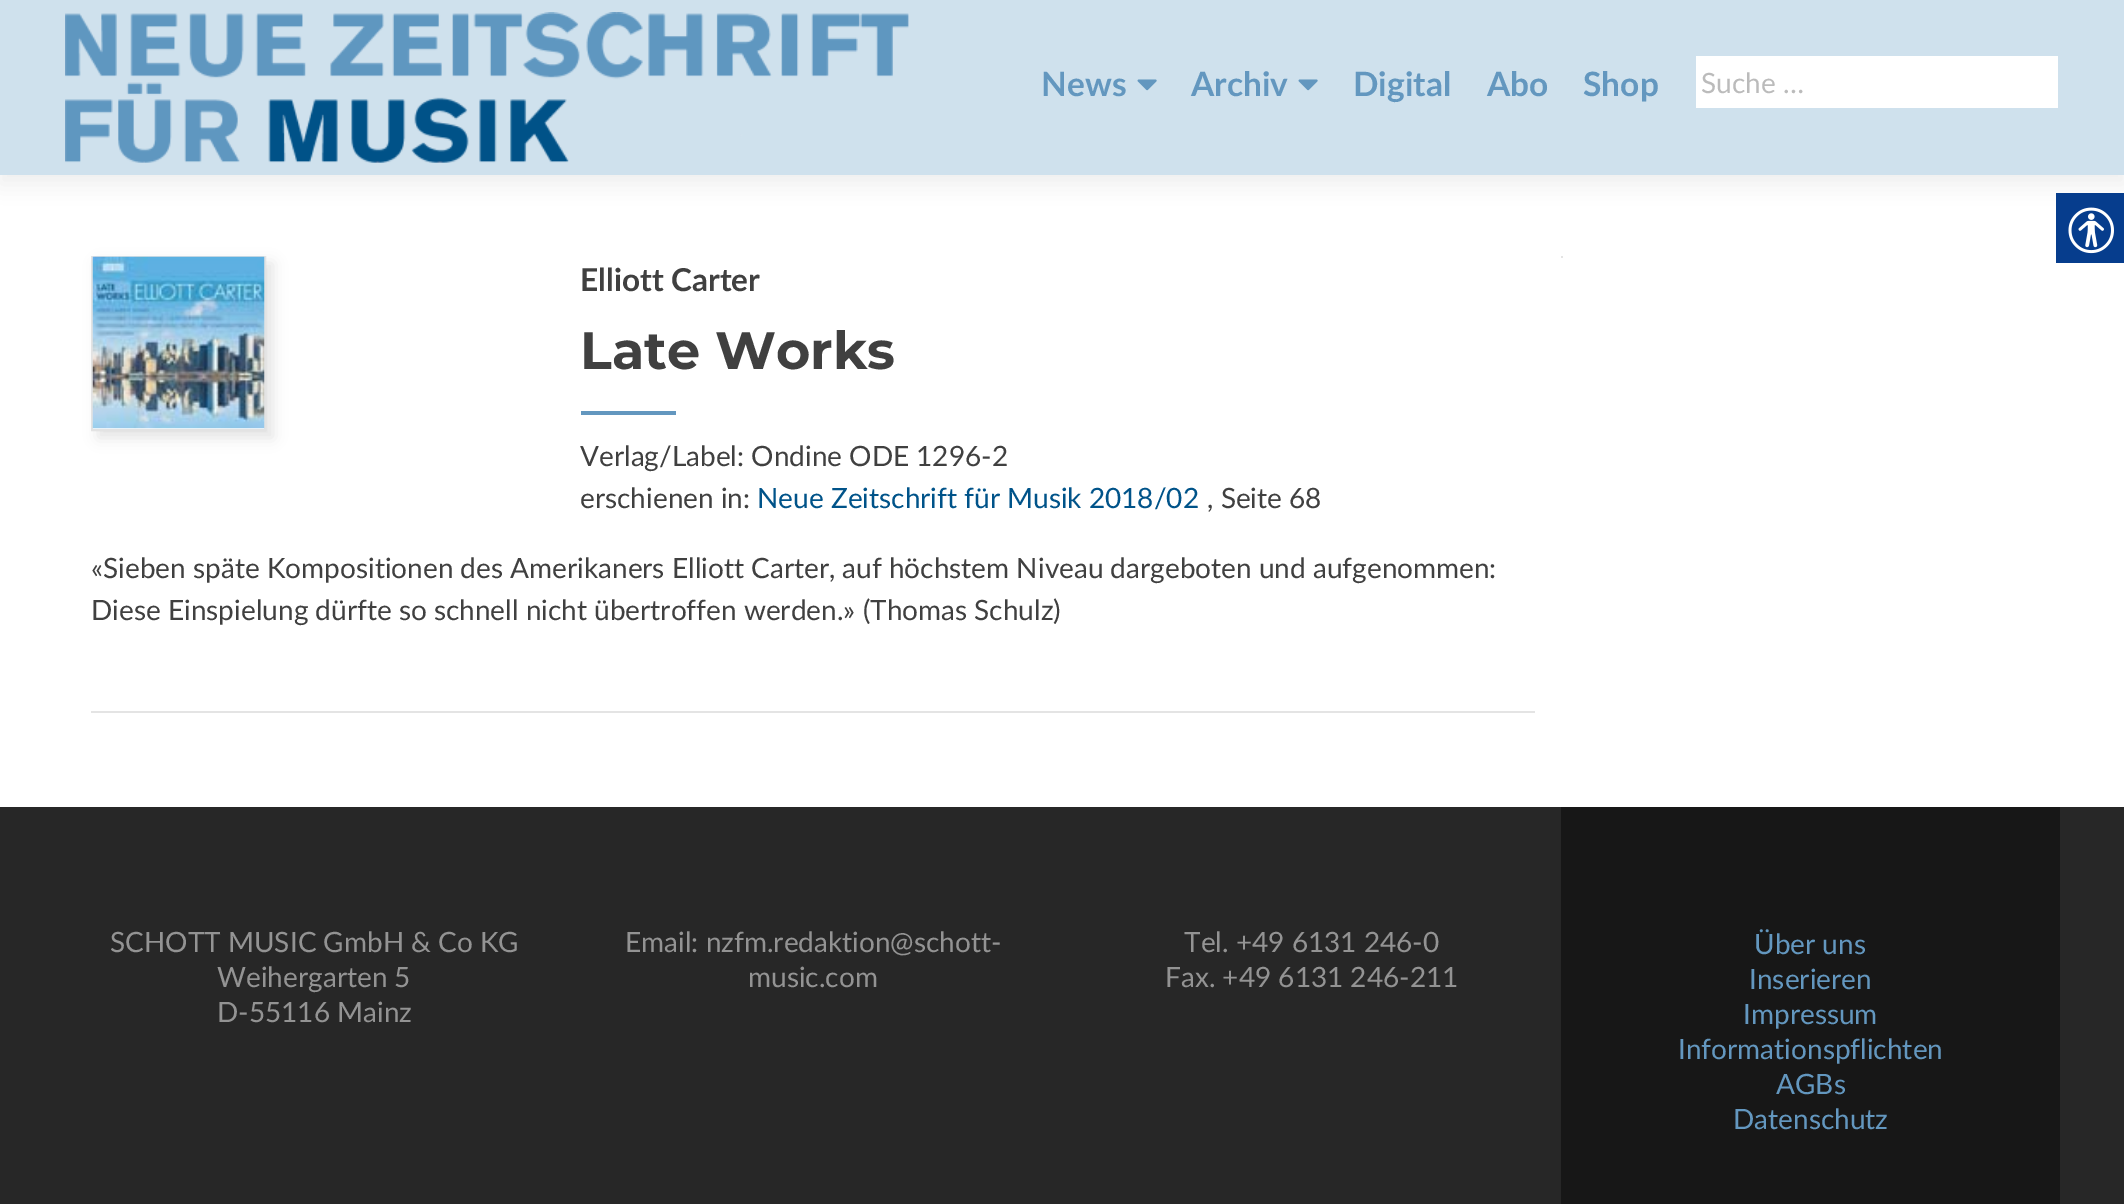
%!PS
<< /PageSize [2124 1204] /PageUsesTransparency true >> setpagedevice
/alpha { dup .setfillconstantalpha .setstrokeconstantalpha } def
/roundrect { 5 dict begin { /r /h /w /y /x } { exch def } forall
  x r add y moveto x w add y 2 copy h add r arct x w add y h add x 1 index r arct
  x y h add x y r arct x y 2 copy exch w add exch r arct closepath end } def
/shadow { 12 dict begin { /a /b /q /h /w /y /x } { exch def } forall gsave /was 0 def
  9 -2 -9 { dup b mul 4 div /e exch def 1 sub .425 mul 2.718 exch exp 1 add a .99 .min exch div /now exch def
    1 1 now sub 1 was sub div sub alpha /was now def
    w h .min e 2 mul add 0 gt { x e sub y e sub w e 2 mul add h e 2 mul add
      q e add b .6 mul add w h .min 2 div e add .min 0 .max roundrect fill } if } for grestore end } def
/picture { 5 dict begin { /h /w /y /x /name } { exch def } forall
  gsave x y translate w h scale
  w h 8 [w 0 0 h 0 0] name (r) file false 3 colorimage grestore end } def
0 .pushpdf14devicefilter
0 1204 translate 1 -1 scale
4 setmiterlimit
1 setgray
0 0 2124 1204 rectfill
0.196 setgray
0 9 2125 175 0 9.5 0.08 shadow
0.812 0.882 0.929 setrgbcolor
0 0 2124 175 rectfill
(img1.rgb) 65 12 844 151 picture
/Lato-Bold [33.5 0 0 -33.5 0 0] selectfont
0.388 0.592 0.749 setrgbcolor
1041 96 moveto (News) show
(img2.rgb) 1137 79 20 12 picture
1191 96 moveto (Archiv) show
(img2.rgb) 1298 79 20 12 picture
1353 96 moveto (Digital) show
1487 96 moveto (Abo) show
1583 96 moveto (Shop) show
1 setgray
1696 56 362 52 rectfill
/Lato-Regular [28 0 0 -28 0 0] selectfont
0.733 setgray
1701 93 moveto (Suche …) show
0.894 setgray
1561 256 2 2 rectfill
91 711 1444 2 rectfill
gsave
newpath 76 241 moveto 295 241 lineto 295 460 lineto 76 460 lineto closepath 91 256 moveto 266 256 lineto 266 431 lineto 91 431 lineto closepath eoclip newpath
0.784 setgray
98 263 175 175 0 7 0.5 shadow
grestore
0.5 alpha
0.784 setgray
2 setlinewidth
92 257 173 173 rectstroke
1 alpha
(img3.rgb) 92 256 173 173 picture
/Lato-Bold [31.5 0 0 -31.5 0 0] selectfont
0.251 setgray
580 291 moveto (Elliott Carter) show
/Montserrat-Bold [52.5 0 0 -52.5 0 0] selectfont
580 369 moveto (Late Works) show
0.388 0.592 0.749 setrgbcolor
581 411 95 4 rectfill
/Lato-Regular [28 0 0 -28 0 0] selectfont
0.251 setgray
580 466 moveto (Verlag/Label: Ondine ODE 1296-2) show
580 508 moveto (erschienen in:) show
0 0.325 0.537 setrgbcolor
757 508 moveto (Neue Zeitschrift für Musik 2018/02) show
0.251 setgray
1207 508 moveto (, Seite 68) show
91 578 moveto («Sieben späte Kompositionen des Amerikaners Elliott Carter, auf höchstem Niveau dargeboten und aufgenommen:) show
91 620 moveto (Diese Einspielung dürfte so schnell nicht übertroffen werden.» \(Thomas Schulz\)) show
0.153 setgray
0 807 2124 397 rectfill
0.576 setgray
110 952 moveto (SCHOTT MUSIC GmbH & Co KG) show
217 987 moveto (Weihergarten 5) show
217 1022 moveto (D-55116 Mainz) show
625 952 moveto (Email: nzfm.redaktion@schott-) show
748 987 moveto (music.com) show
1184 952 moveto (Tel. +49 6131 246-0) show
1165 987 moveto (Fax. +49 6131 246-211) show
0.09 setgray
1561 807 499 397 rectfill
0.388 0.592 0.749 setrgbcolor
1754 954 moveto (Über uns) show
1749 989 moveto (Inserieren) show
1743 1024 moveto (Impressum) show
1678 1059 moveto (Informationspflichten) show
1776 1094 moveto (AGBs) show
1733 1129 moveto (Datenschutz) show
0.024 0.239 0.553 setrgbcolor
2056 193 68 70 rectfill
(img4.rgb) 2068 207 46 47 picture
.poppdf14devicefilter showpage
